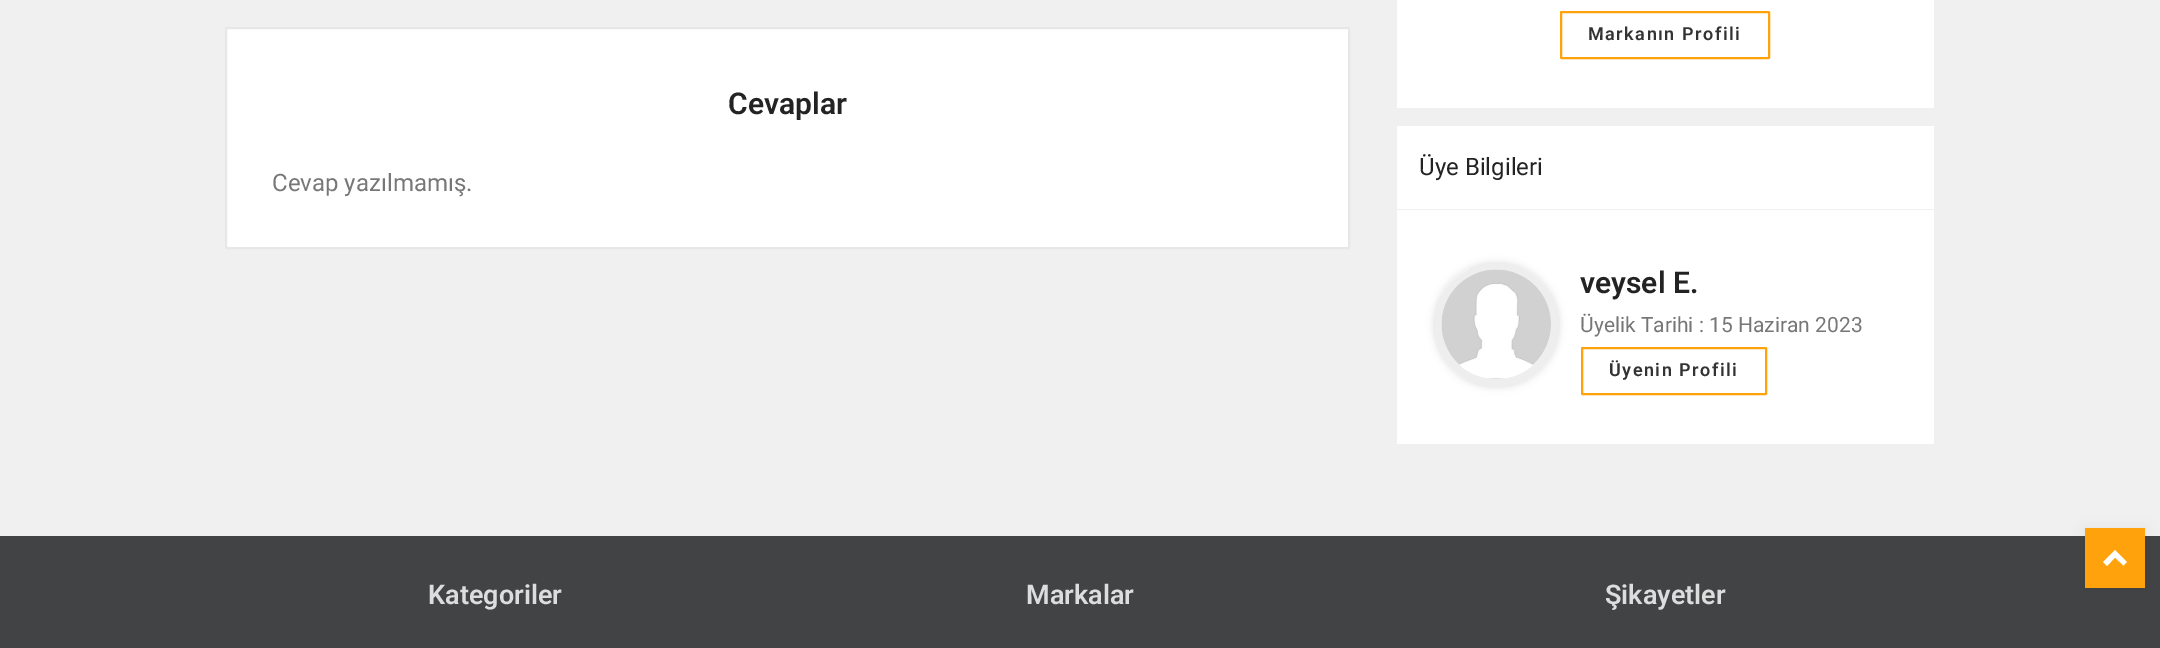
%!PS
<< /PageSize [2160 648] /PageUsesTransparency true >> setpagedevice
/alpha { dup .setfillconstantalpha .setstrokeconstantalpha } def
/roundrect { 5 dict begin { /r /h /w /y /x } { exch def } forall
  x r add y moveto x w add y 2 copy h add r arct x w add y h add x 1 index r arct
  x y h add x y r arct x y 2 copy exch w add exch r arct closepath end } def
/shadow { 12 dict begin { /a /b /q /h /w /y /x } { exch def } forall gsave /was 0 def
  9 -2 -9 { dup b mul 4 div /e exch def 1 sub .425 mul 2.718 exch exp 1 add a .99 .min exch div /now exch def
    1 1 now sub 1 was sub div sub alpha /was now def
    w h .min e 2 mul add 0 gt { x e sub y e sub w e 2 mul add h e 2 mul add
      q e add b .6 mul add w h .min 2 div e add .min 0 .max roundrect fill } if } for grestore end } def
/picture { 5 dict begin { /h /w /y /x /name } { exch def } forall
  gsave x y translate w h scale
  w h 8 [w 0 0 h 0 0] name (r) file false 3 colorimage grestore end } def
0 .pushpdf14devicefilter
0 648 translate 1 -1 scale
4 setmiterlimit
0.941 setgray
0 0 2160 648 rectfill
1 setgray
226 28 1123 220 0.5 roundrect gsave fill grestore
0.906 setgray
2 setlinewidth
stroke
/Roboto-SemiBold [30 0 0 -30 0 0] selectfont
0.137 setgray
728 114 moveto (Cevaplar) show
/Roboto-Regular [24 0 0 -24 0 0] selectfont
0.467 setgray
272 191 moveto (Cevap yazılmamış.) show
1 setgray
1397 0 537 108 rectfill
1 0.635 0.047 setrgbcolor
1561 12 208 46 0.5 roundrect stroke
/Roboto-SemiBold [18 0 0 -18 0 0] selectfont
0.2 setgray
1588 40 moveto 1.5 0 (Markanın Profili) ashow
1 setgray
1397 126 537 83 rectfill
/Roboto-Regular [24 0 0 -24 0 0] selectfont
0.137 setgray
1419 175 moveto (Üye Bilgileri) show
1 setgray
1397 210 537 234 rectfill
0.867 setgray
1434 263 125 124 62 4 1 shadow
0.933 setgray
8 setlinewidth
1438 267 117 116 58 roundrect stroke
(img1.rgb) 1441 269 110 110 picture
/Roboto-SemiBold [30 0 0 -30 0 0] selectfont
0.137 setgray
1580 293 moveto (veysel E.) show
/Roboto-Regular [21 0 0 -21 0 0] selectfont
0.467 setgray
1580 332 moveto (Üyelik Tarihi : 15 Haziran 2023) show
1 0.635 0.047 setrgbcolor
2 setlinewidth
1582 348 184 46 0.5 roundrect stroke
/Roboto-SemiBold [18 0 0 -18 0 0] selectfont
0.2 setgray
1609 376 moveto 1.5 0 (Üyenin Profili) ashow
0.259 0.263 0.271 setrgbcolor
0 536 2160 112 rectfill
/Roboto-SemiBold [27 0 0 -27 0 0] selectfont
0.867 setgray
428 604 moveto (Kategoriler) show
1026 604 moveto (Markalar) show
1605 604 moveto (Şikayetler) show
0 setgray
2085 528 60 60 0 7.5 0.05 shadow
1 0.635 0.047 setrgbcolor
2085 528 60 60 rectfill
1 setgray
newpath 2115 550 moveto 2127 562 lineto 2123.5 565.5 lineto 2115 557.5 lineto 2107 566 lineto 2103 562 lineto closepath fill
.poppdf14devicefilter showpage
